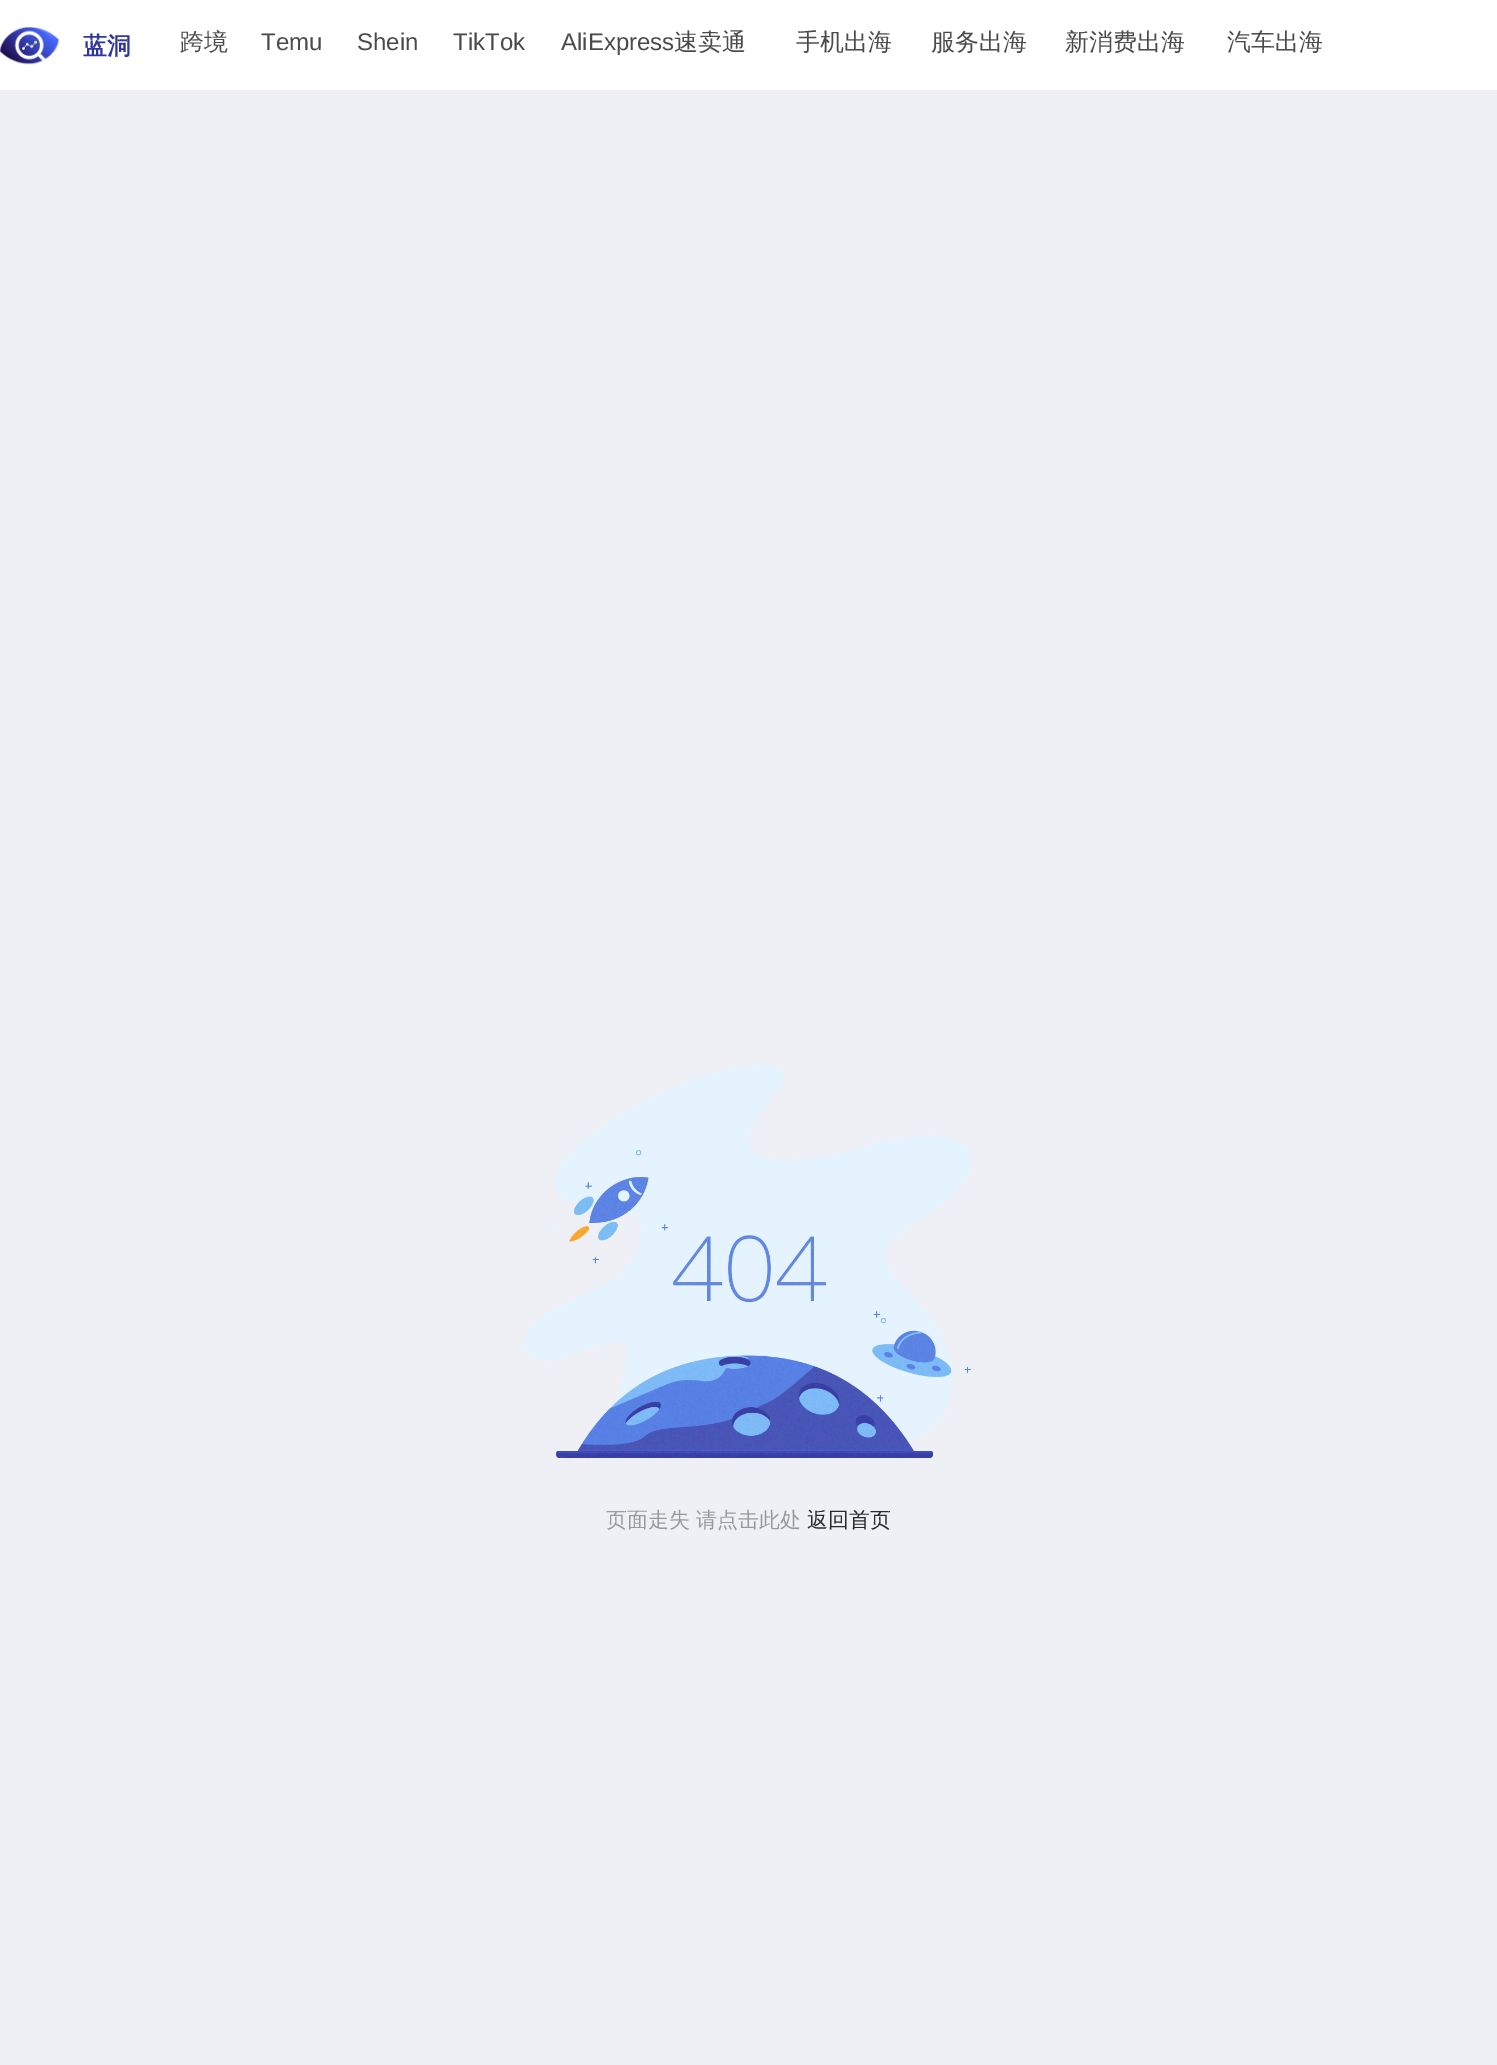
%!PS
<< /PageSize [1497 2065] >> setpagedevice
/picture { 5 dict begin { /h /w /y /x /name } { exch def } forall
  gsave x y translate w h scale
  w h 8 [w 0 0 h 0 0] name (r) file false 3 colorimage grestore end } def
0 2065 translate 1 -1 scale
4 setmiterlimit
0.937 0.941 0.961 setrgbcolor
0 0 1497 2065 rectfill
1 setgray
0 0 1497 90 rectfill
(img1.rgb) 0 27 60 38 picture
/WenQuanYiZenHei-Bold [24 0 0 -24 0 0] selectfont
0.192 0.212 0.62 setrgbcolor
83 54 moveto (蓝洞) show
/WenQuanYiZenHei-Medium [24 0 0 -24 0 0] selectfont
0.29 setgray
180 50 moveto (跨境) show
/LiberationSans-Regular [24 0 0 -24 0 0] selectfont
261 50 moveto (Temu) show
357 50 moveto (Shein) show
453 50 moveto (TikTok) show
561 50 moveto (AliExpress) show
/WenQuanYiZenHei-Medium [24 0 0 -24 0 0] selectfont
674 50 moveto (速卖通) show
796 50 moveto (手机出海) show
931 50 moveto (服务出海) show
1065 50 moveto (新消费出海) show
1227 50 moveto (汽车出海) show
(img2.rgb) 524 1064 448 394 picture
/WenQuanYiZenHei-Medium [21 0 0 -21 0 0] selectfont
0.6 setgray
606 1527 moveto (页面走失 请点击此处) show
0.165 setgray
807 1527 moveto (返回首页) show
showpage
